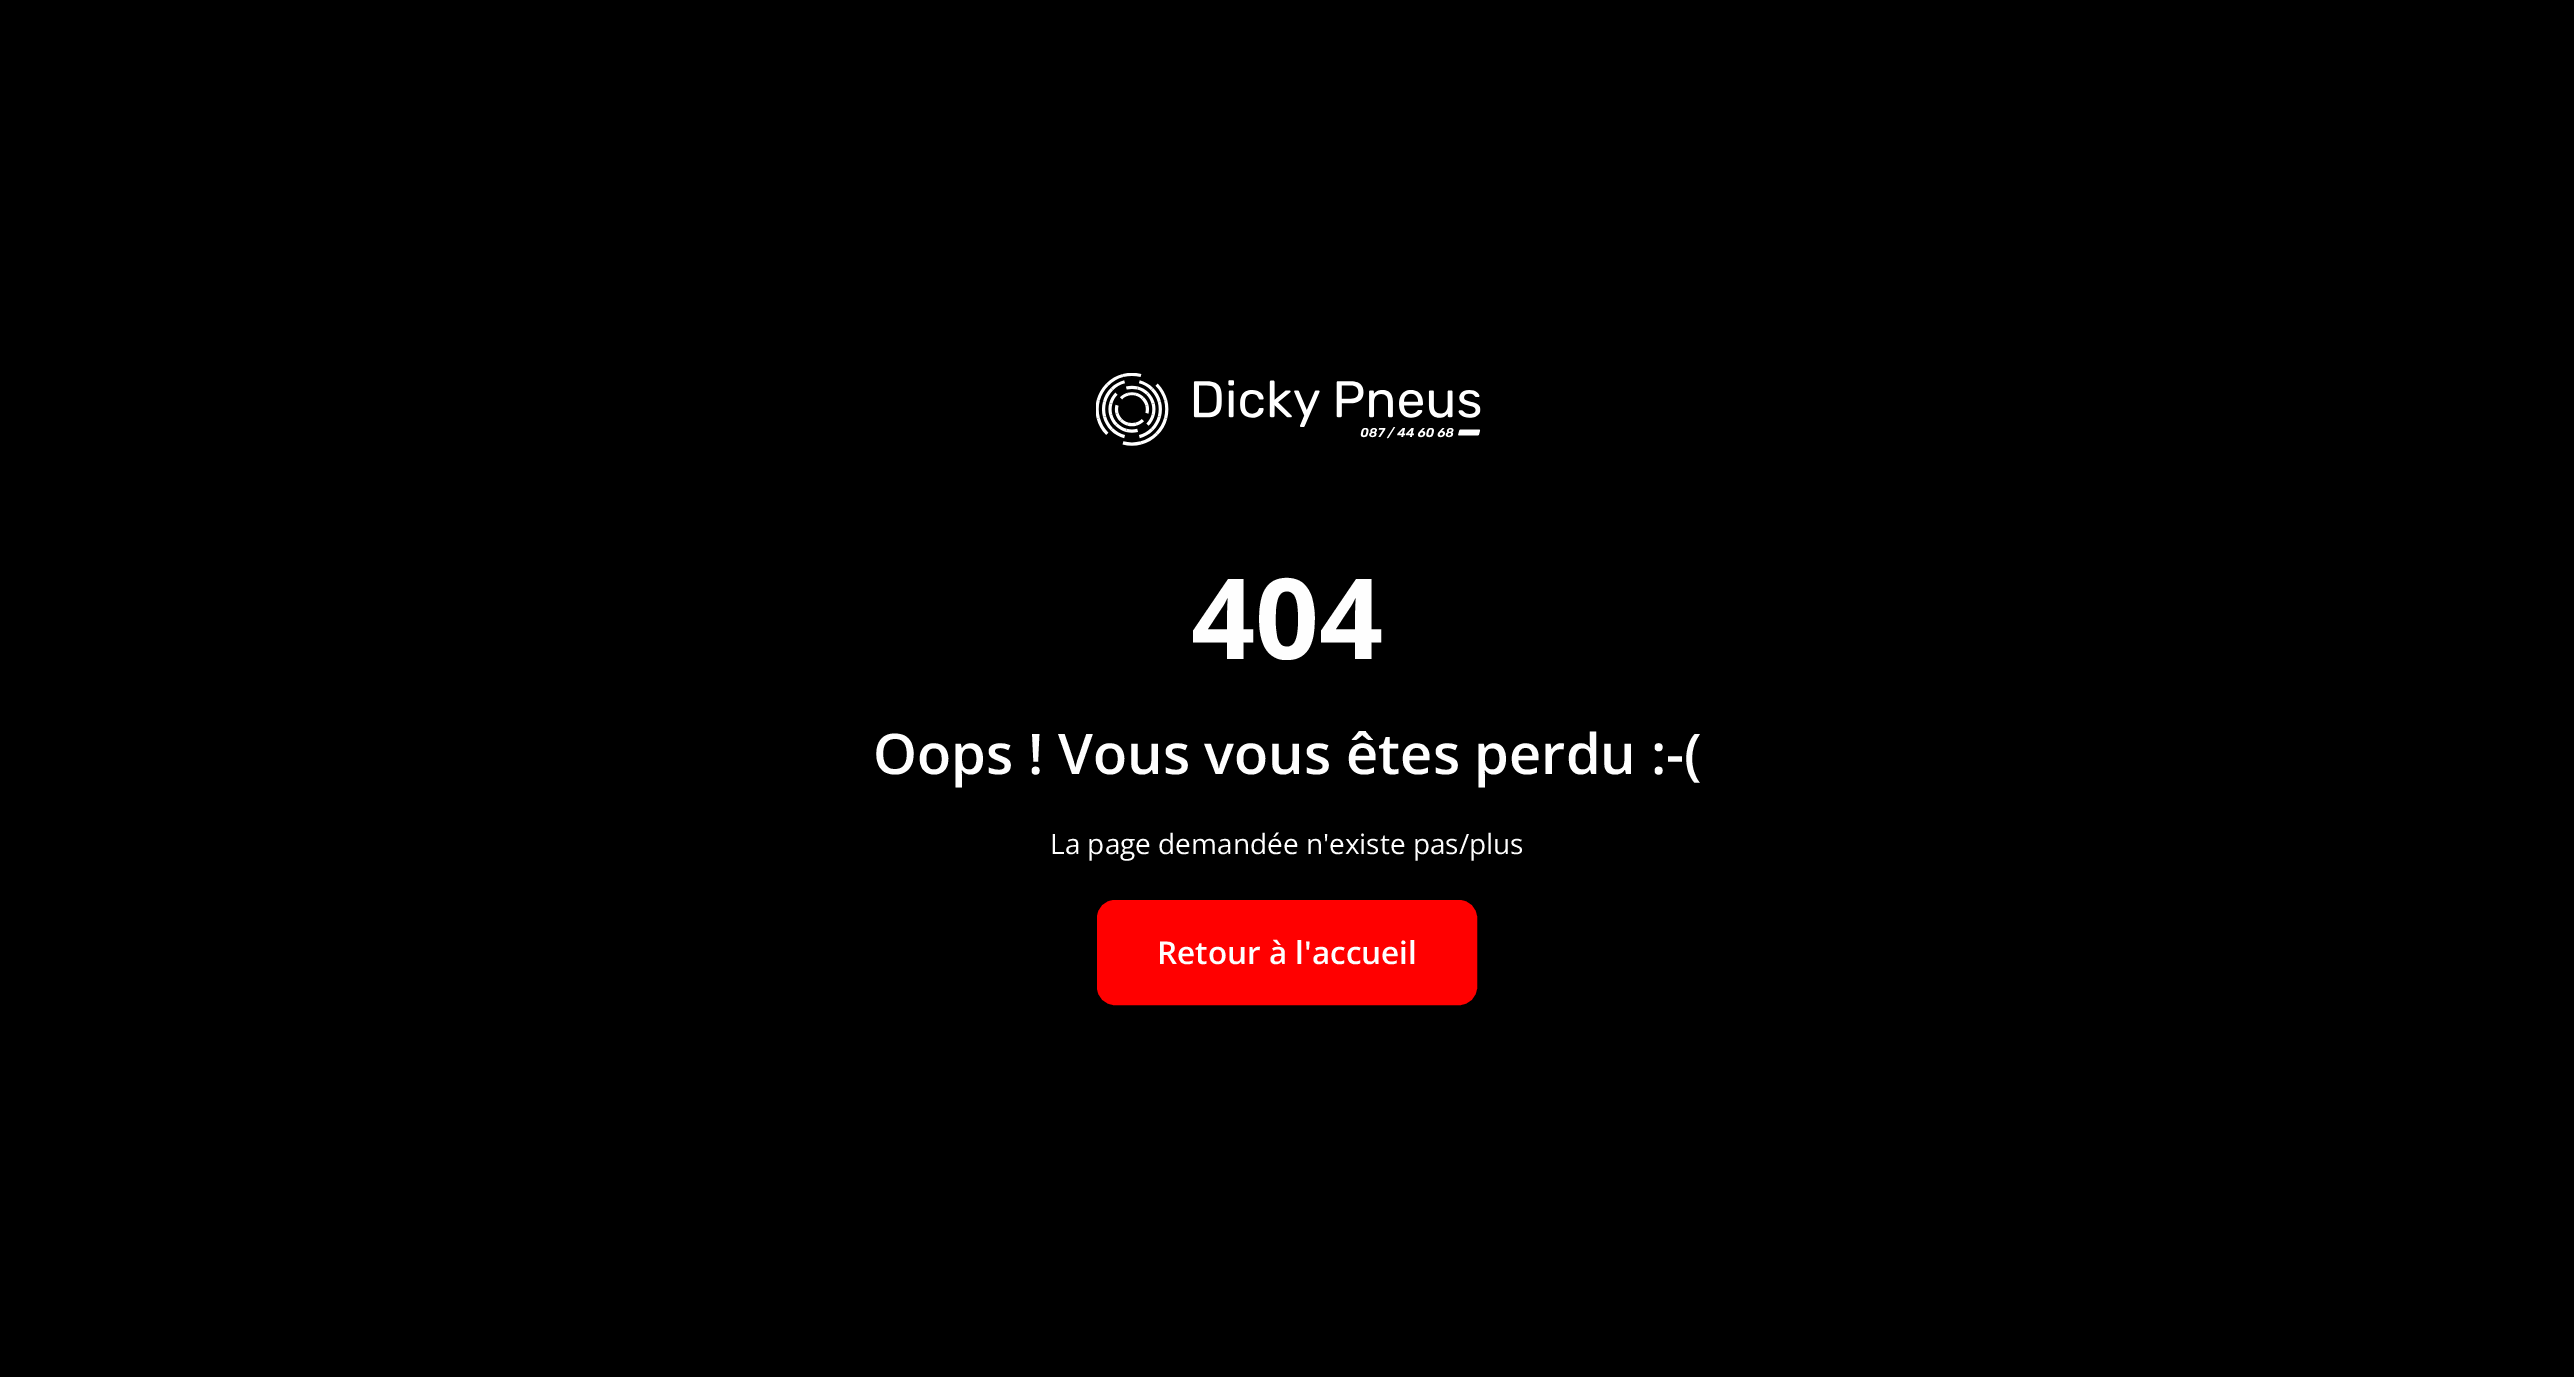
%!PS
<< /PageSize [2574 1377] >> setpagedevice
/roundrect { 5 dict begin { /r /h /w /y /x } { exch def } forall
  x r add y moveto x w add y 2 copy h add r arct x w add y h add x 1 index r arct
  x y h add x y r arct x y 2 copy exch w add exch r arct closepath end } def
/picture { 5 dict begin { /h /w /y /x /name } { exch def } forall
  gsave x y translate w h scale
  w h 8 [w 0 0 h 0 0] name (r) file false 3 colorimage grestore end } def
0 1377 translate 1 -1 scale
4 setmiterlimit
0 setgray
0 0 2574 1377 rectfill
(img1.rgb) 1096 373 385 73 picture
/OpenSans-Bold [112 0 0 -112 0 0] selectfont
0.996 setgray
1191 659 moveto (404) show
/OpenSans-SemiBold [56 0 0 -56 0 0] selectfont
873 774 moveto (Oops ! Vous vous êtes perdu :-\() show
/OpenSans-Regular [28 0 0 -28 0 0] selectfont
1050 854 moveto (La page demandée n'existe pas/plus) show
1 0 0 setrgbcolor
1099 902 376 101 16 roundrect gsave fill grestore
4 setlinewidth
stroke
/OpenSans-SemiBold [31.5 0 0 -31.5 0 0] selectfont
0.996 setgray
1157 964 moveto (Retour à l'accueil) show
showpage
